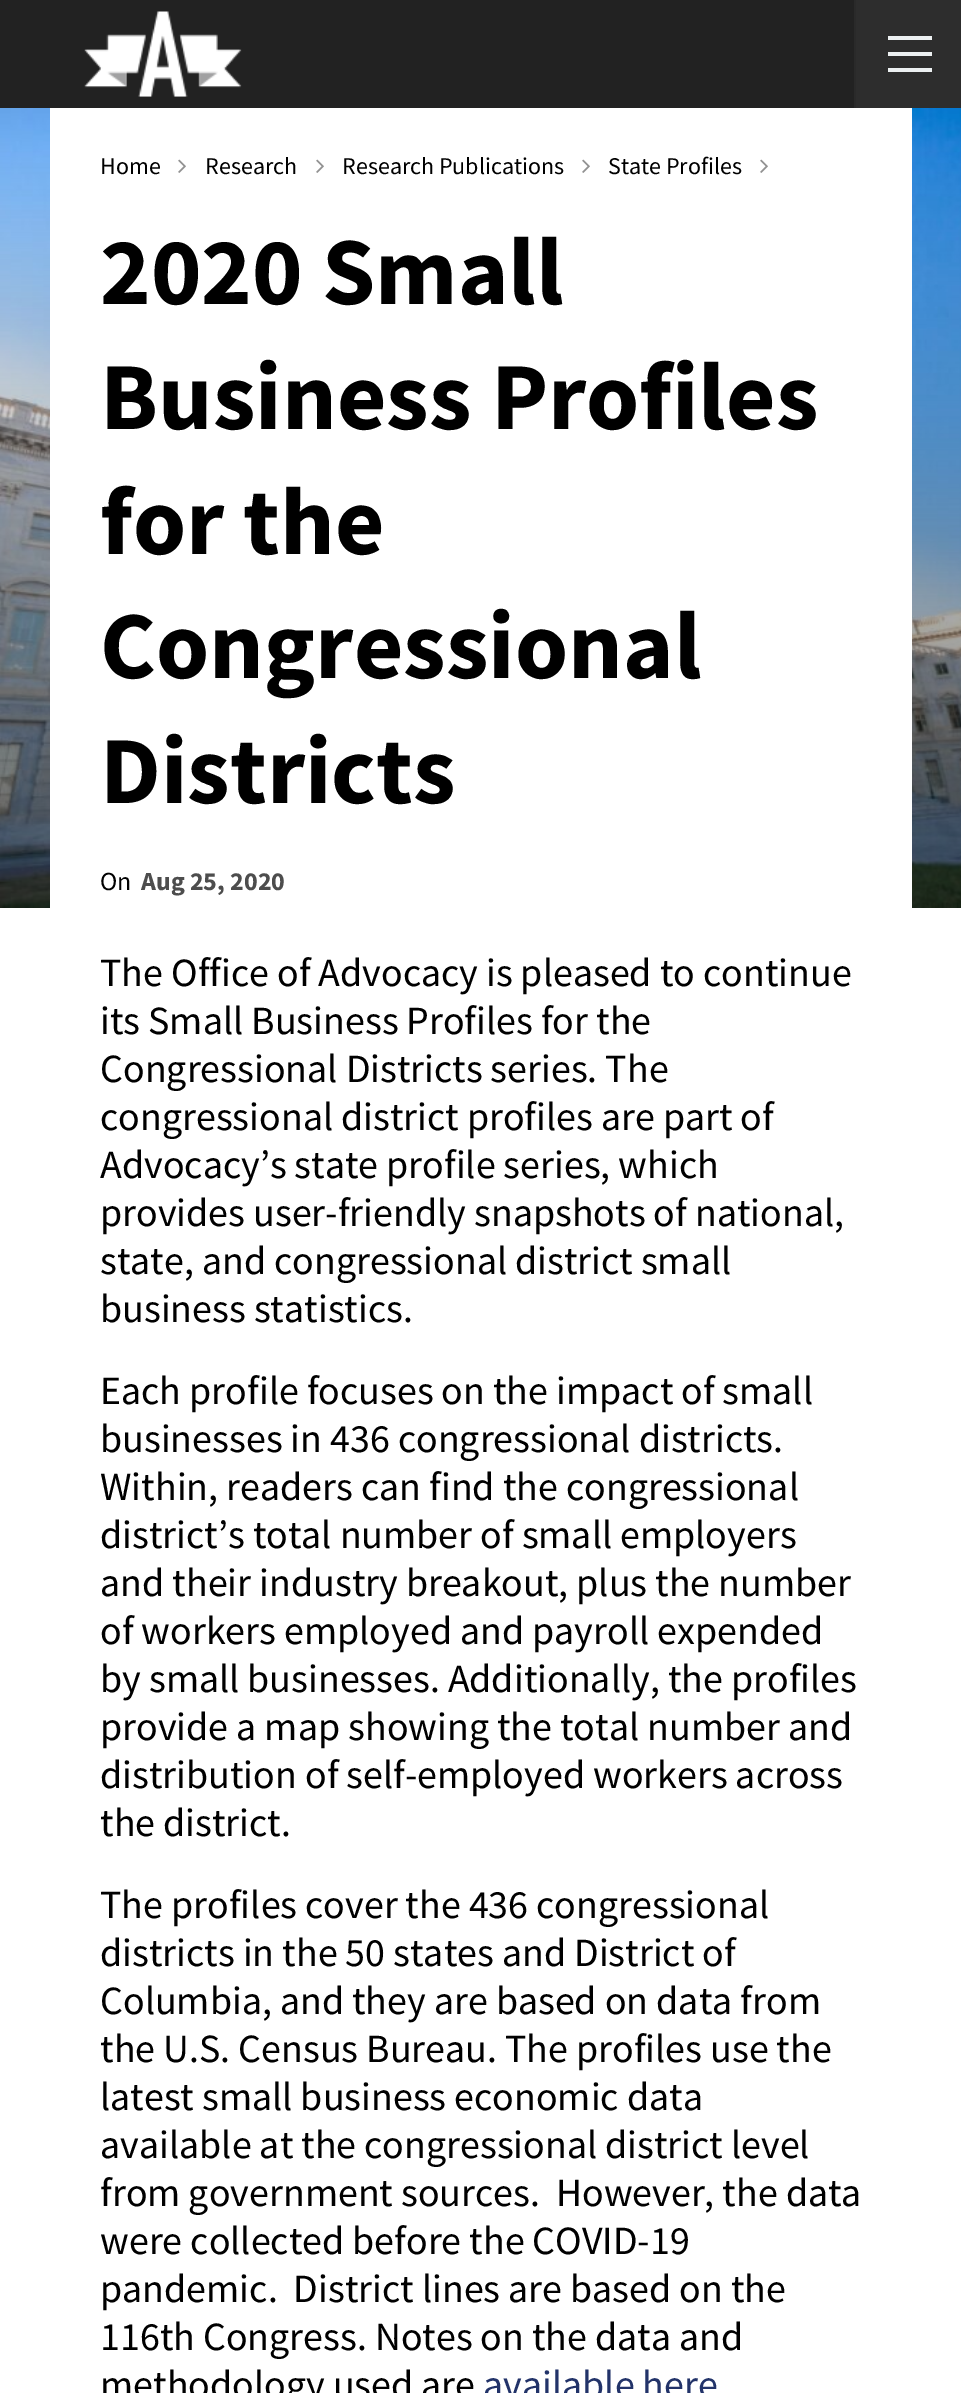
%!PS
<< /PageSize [961 2393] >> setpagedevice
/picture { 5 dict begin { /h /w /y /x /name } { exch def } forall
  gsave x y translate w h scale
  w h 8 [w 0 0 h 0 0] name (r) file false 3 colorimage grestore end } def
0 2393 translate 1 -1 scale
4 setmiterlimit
1 setgray
0 0 961 2393 rectfill
0.133 setgray
0 0 854 108 rectfill
(img1.rgb) 84 11 158 86 picture
0.176 setgray
856 0 105 108 rectfill
0.165 setgray
854 0 2 108 rectfill
0.925 0.941 0.945 setrgbcolor
888 52 44 4 rectfill
888 36 44 4 rectfill
888 68 44 4 rectfill
(img2.rgb) 0 108 961 800 picture
1 setgray
50 108 862 800 rectfill
/SourceSansPro-Regular [24 0 0 -24 0 0] selectfont
0 setgray
100 174 moveto (Home) show
(img3.rgb) 178 159 8 14 picture
205 174 moveto (Research) show
(img3.rgb) 316 159 8 14 picture
342 174 moveto (Research Publications) show
(img3.rgb) 582 159 8 14 picture
608 174 moveto (State Profiles) show
(img3.rgb) 760 159 8 14 picture
/SourceSansPro-Bold [96 0 0 -96 0 0] selectfont
100 304 moveto (2020 Small) show
100 429 moveto (Business Profiles) show
100 554 moveto (for the) show
100 678 moveto (Congressional) show
100 803 moveto (Districts) show
/SourceSansPro-Regular [26 0 0 -26 0 0] selectfont
100 890 moveto (On) show
/SourceSansPro-Bold [26 0 0 -26 0 0] selectfont
0.302 setgray
141 890 moveto (Aug 25, 2020) show
/SourceSansPro-Regular [40 0 0 -40 0 0] selectfont
0 setgray
100 986 moveto (The Office of Advocacy is pleased to continue) show
100 1034 moveto (its Small Business Profiles for the) show
100 1082 moveto (Congressional Districts series. The) show
100 1130 moveto (congressional district profiles are part of) show
100 1178 moveto (Advocacy’s state profile series, which) show
100 1226 moveto (provides user-friendly snapshots of national,) show
100 1274 moveto (state, and congressional district small) show
100 1322 moveto (business statistics.) show
100 1404 moveto (Each profile focuses on the impact of small) show
100 1452 moveto (businesses in 436 congressional districts.) show
100 1500 moveto (Within, readers can find the congressional) show
100 1548 moveto (district’s total number of small employers) show
100 1596 moveto (and their industry breakout, plus the number) show
100 1644 moveto (of workers employed and payroll expended) show
100 1692 moveto (by small businesses. Additionally, the profiles) show
100 1740 moveto (provide a map showing the total number and) show
100 1788 moveto (distribution of self-employed workers across) show
100 1836 moveto (the district.) show
100 1918 moveto (The profiles cover the 436 congressional) show
100 1966 moveto (districts in the 50 states and District of) show
100 2014 moveto (Columbia, and they are based on data from) show
100 2062 moveto (the U.S. Census Bureau. The profiles use the) show
100 2110 moveto (latest small business economic data) show
100 2158 moveto (available at the congressional district level) show
100 2206 moveto (from government sources.  However, the data) show
100 2254 moveto (were collected before the COVID-19) show
100 2302 moveto (pandemic.  District lines are based on the) show
100 2350 moveto (116th Congress. Notes on the data and) show
100 2398 moveto (methodology used are) show
0.133 0.2 0.412 setrgbcolor
483 2398 moveto (available here) show
showpage
